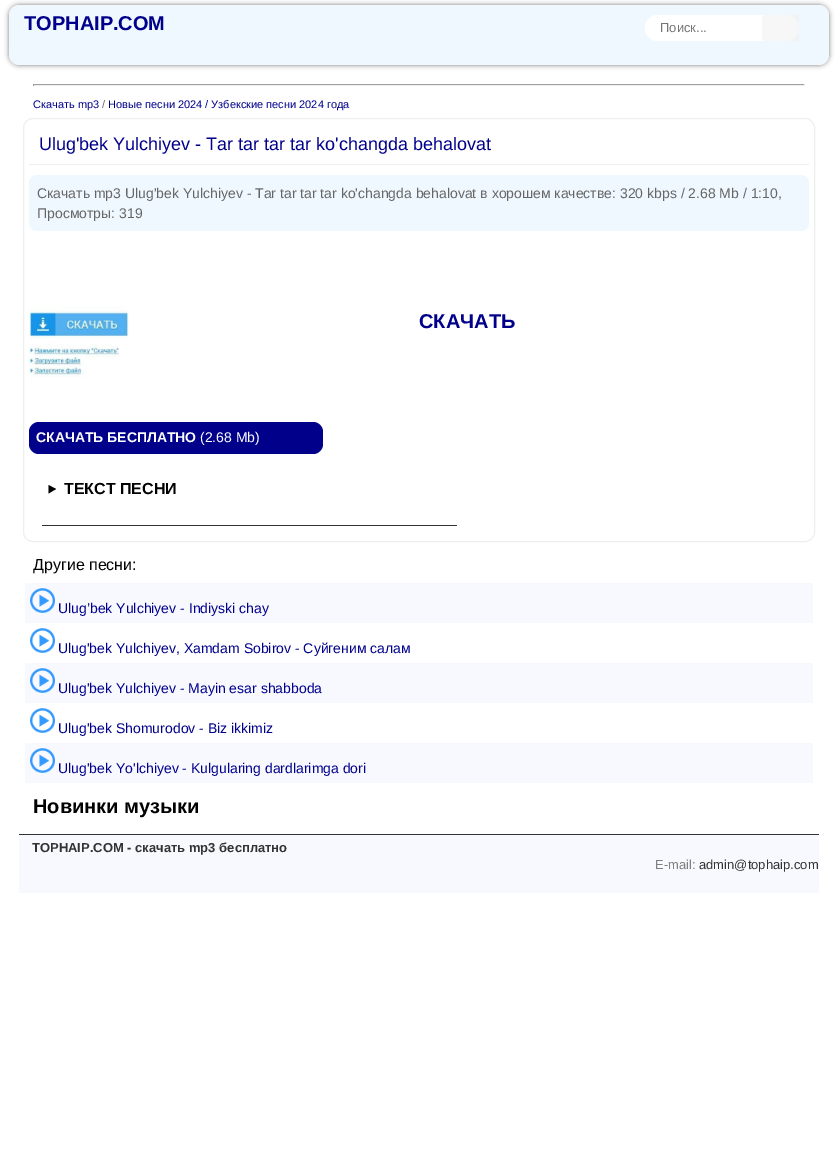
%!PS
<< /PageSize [837 1165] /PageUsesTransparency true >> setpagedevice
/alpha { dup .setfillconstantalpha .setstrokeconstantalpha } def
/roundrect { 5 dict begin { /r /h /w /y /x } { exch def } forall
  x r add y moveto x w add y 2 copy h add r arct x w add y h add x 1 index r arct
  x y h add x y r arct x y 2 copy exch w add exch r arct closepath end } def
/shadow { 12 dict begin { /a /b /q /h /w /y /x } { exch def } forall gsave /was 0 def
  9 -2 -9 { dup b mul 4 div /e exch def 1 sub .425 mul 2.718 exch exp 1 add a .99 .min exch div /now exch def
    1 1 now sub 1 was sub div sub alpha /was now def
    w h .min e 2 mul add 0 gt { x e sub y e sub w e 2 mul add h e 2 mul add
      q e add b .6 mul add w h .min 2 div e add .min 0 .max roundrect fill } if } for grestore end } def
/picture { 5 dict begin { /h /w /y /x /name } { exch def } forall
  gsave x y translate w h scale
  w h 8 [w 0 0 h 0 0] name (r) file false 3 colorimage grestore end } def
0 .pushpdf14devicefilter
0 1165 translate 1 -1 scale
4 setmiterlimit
1 setgray
0 0 837 1165 rectfill
0 setgray
9 5 820 60 10 2.5 0.5 shadow
0.941 0.973 1 setrgbcolor
9 5 820 60 10 roundrect fill
/LiberationSans-Bold [20 0 0 -20 0 0] selectfont
0 0 0.545 setrgbcolor
24 30 moveto (TOPHAIP.COM) show
1 setgray
645 15 154 26 13 roundrect fill
/LiberationSans-Regular [13 0 0 -13 0 0] selectfont
0.459 setgray
660 32 moveto (Поиск...) show
0.5 alpha
0.937 setgray
762 15 37 26 3 roundrect fill
1 alpha
0.624 setgray
33 84 772 1 rectfill
0.933 setgray
804 84 1 2 rectfill
33 85 772 1 rectfill
0.624 setgray
33 84 1 2 rectfill
/LiberationSans-Regular [11 0 0 -11 0 0] selectfont
0 0 0.545 setrgbcolor
33 108 moveto (Скачать mp3) show
0.4 setgray
102 108 moveto (/) show
0 0 0.545 setrgbcolor
108 108 moveto (Новые песни 2024 / Узбекские песни 2024 года) show
0.933 setgray
23.5 118.5 791 423 9.5 roundrect stroke
29 164 780 1 rectfill
/LiberationSans-Regular [18 0 0 -18 0 0] selectfont
0 0 0.545 setrgbcolor
39 150 moveto (Ulug'bek Yulchiyev - Tar tar tar tar ko'changda behalovat) show
0.941 0.973 1 setrgbcolor
29 175 780 56 8 roundrect fill
/LiberationSans-Regular [14 0 0 -14 0 0] selectfont
0.4 setgray
37 198 moveto (Скачать mp3 Ulug'bek Yulchiyev - Tar tar tar tar ko'changda behalovat в хорошем качестве: 320 kbps / 2.68 Mb / 1:10,) show
37 218 moveto (Просмотры: 319) show
(img1.rgb) 29 307 100 71 picture
/LiberationSans-Bold [20 0 0 -20 0 0] selectfont
0 0 0.545 setrgbcolor
419 328 moveto (СКАЧАТЬ) show
29 422 294 32 10 roundrect fill
/LiberationSans-Bold [14 0 0 -14 0 0] selectfont
1 setgray
36 442 moveto (СКАЧАТЬ БЕСПЛАТНО) show
/LiberationSans-Regular [14 0 0 -14 0 0] selectfont
200 442 moveto (\(2.68 Mb\)) show
0.2 setgray
42 525 415 1 rectfill
0 setgray
newpath 48.5 485 moveto 56 489 lineto 48.5 493.5 lineto closepath fill
/LiberationSans-Bold [16 0 0 -16 0 0] selectfont
64 494 moveto (ТЕКСТ ПЕСНИ) show
/LiberationSans-Regular [16 0 0 -16 0 0] selectfont
33 570 moveto (Другие песни:) show
0.973 0.973 1 setrgbcolor
25 583 788 40 rectfill
(img2.rgb) 30 588 25 25 picture
/LiberationSans-Regular [14 0 0 -14 0 0] selectfont
0 0 0.545 setrgbcolor
58 613 moveto (Ulug’bek Yulchiyev - Indiyski chay) show
(img3.rgb) 30 628 25 25 picture
58 653 moveto (Ulug'bek Yulchiyev, Xamdam Sobirov - Суйгеним салам) show
0.973 0.973 1 setrgbcolor
25 663 788 40 rectfill
(img2.rgb) 30 668 25 25 picture
0 0 0.545 setrgbcolor
58 693 moveto (Ulug'bek Yulchiyev - Mayin esar shabboda) show
(img3.rgb) 30 708 25 25 picture
58 733 moveto (Ulug'bek Shomurodov - Biz ikkimiz) show
0.973 0.973 1 setrgbcolor
25 743 788 40 rectfill
(img2.rgb) 30 748 25 25 picture
0 0 0.545 setrgbcolor
58 773 moveto (Ulug'bek Yo'lchiyev - Kulgularing dardlarimga dori) show
/LiberationSans-Bold [20 0 0 -20 0 0] selectfont
0 setgray
33 813 moveto (Новинки музыки) show
0.973 0.973 1 setrgbcolor
19 835 800 58 rectfill
0.2 setgray
19 834 800 1 rectfill
/LiberationSans-Bold [13 0 0 -13 0 0] selectfont
32 852 moveto (TOPHAIP.COM - скачать mp3 бесплатно) show
/LiberationSans-Regular [13 0 0 -13 0 0] selectfont
0.502 setgray
655 869 moveto (E-mail:) show
0.2 setgray
699 869 moveto (admin@tophaip.com) show
.poppdf14devicefilter showpage
